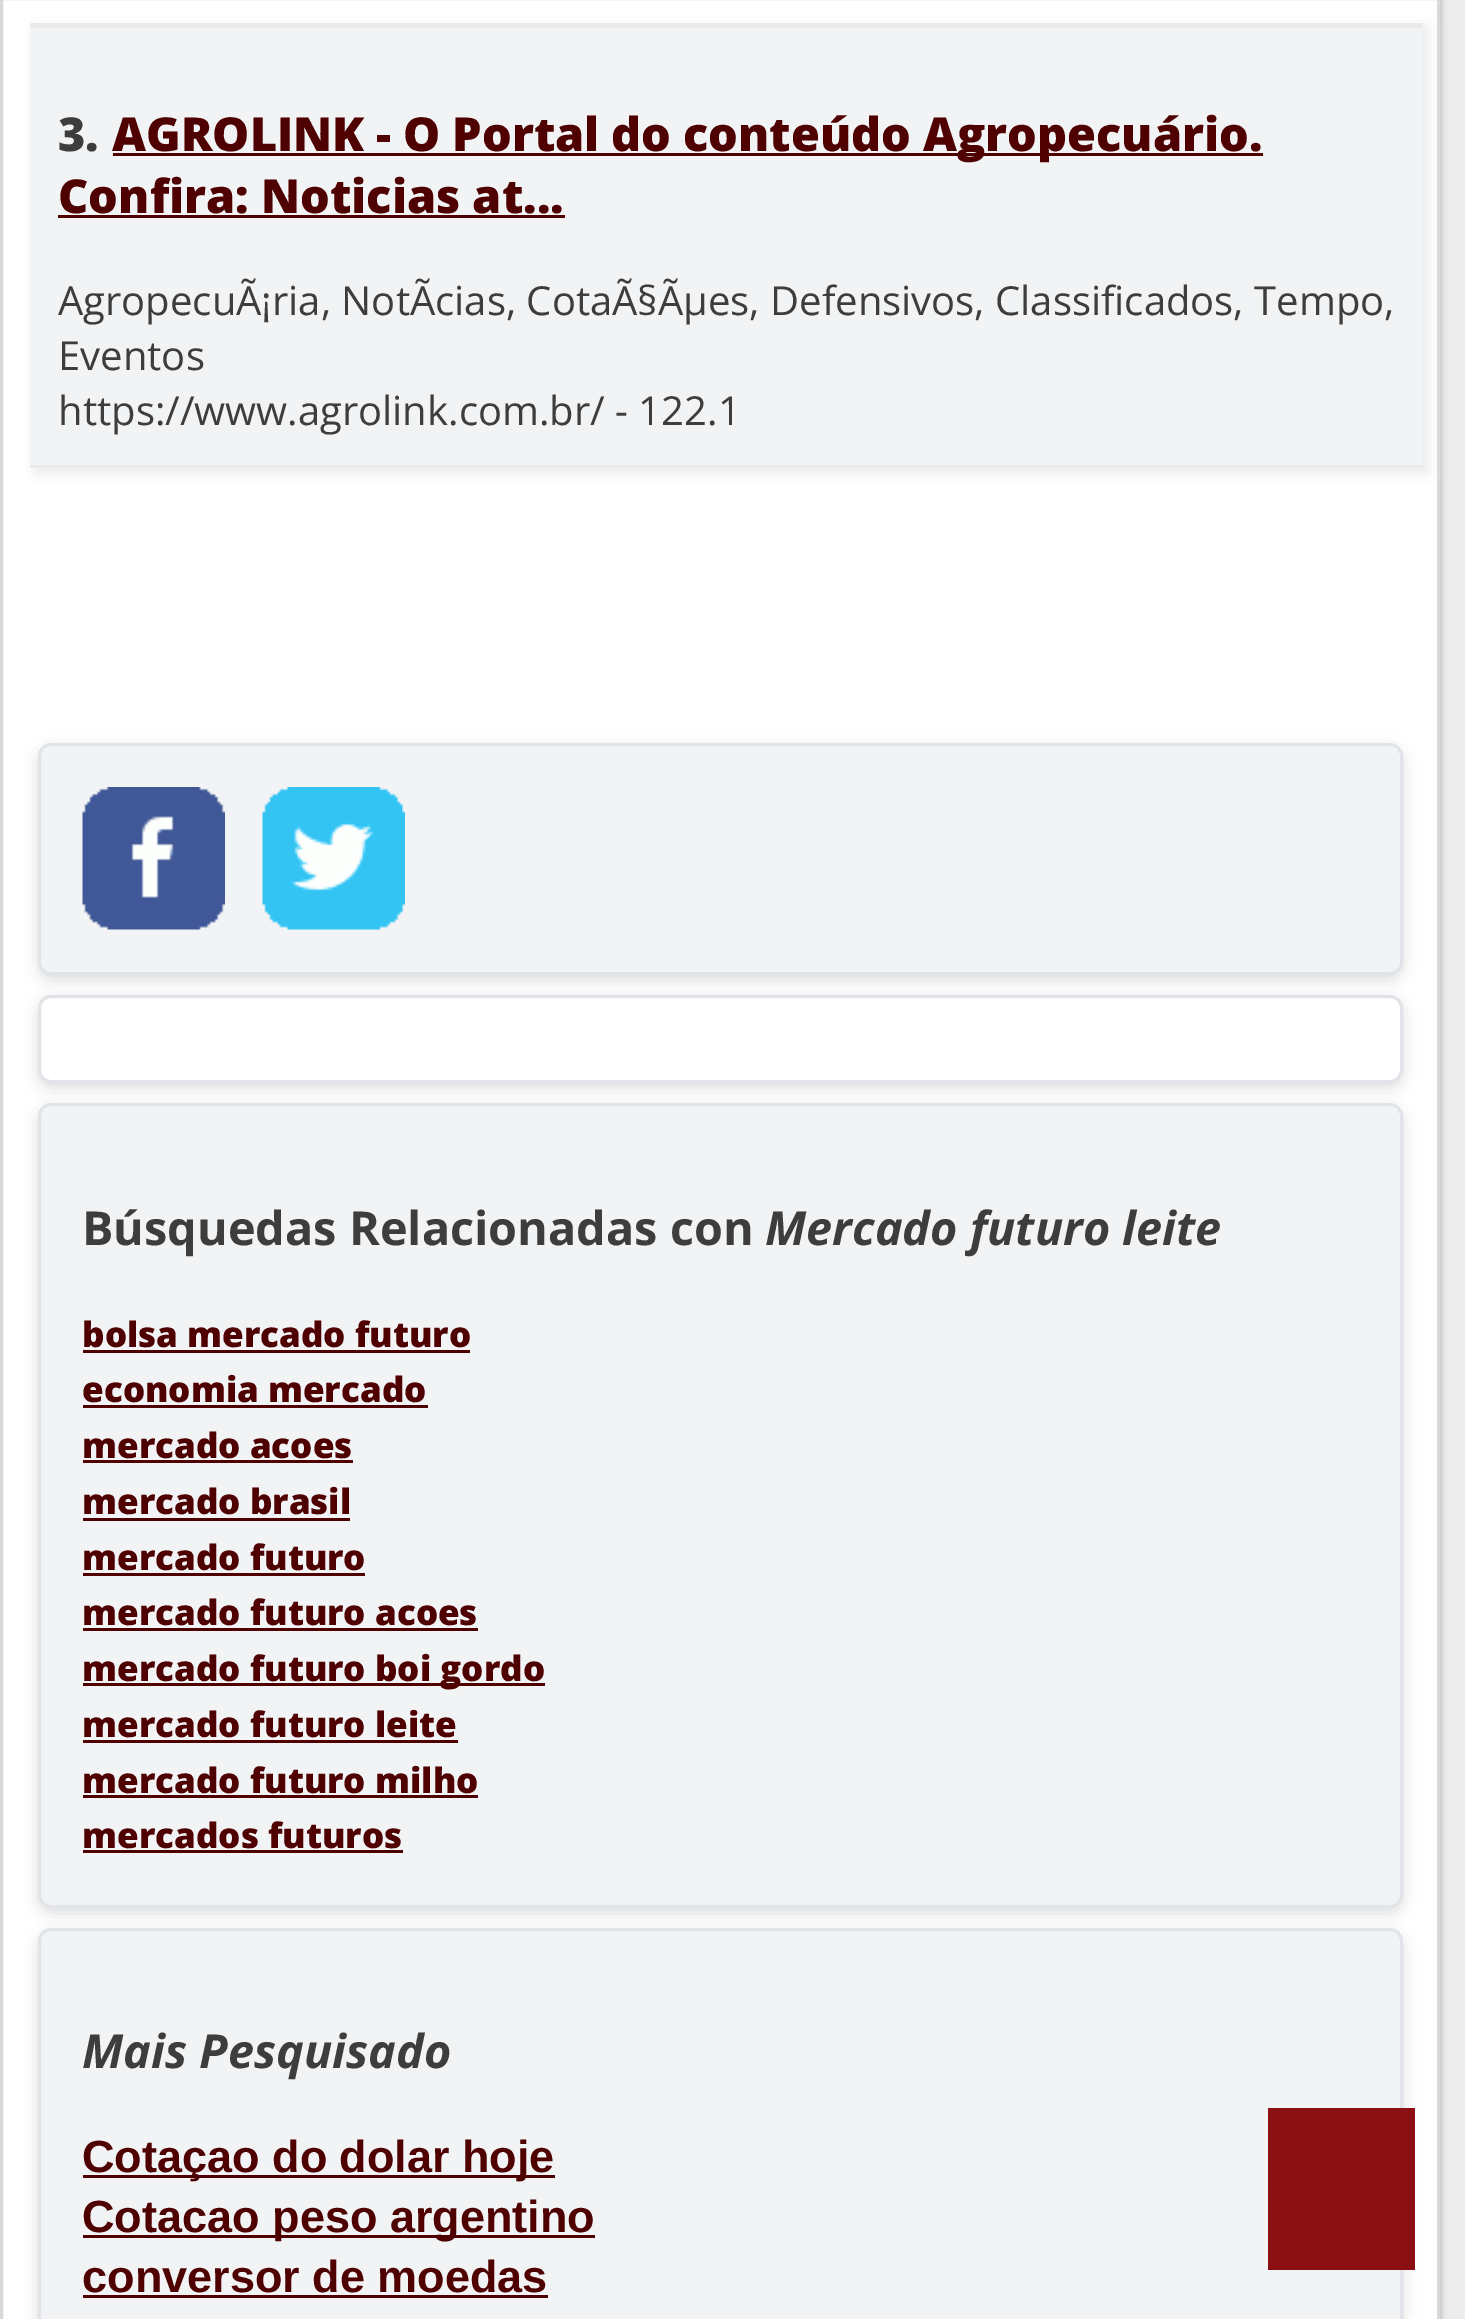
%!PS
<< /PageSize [1465 2319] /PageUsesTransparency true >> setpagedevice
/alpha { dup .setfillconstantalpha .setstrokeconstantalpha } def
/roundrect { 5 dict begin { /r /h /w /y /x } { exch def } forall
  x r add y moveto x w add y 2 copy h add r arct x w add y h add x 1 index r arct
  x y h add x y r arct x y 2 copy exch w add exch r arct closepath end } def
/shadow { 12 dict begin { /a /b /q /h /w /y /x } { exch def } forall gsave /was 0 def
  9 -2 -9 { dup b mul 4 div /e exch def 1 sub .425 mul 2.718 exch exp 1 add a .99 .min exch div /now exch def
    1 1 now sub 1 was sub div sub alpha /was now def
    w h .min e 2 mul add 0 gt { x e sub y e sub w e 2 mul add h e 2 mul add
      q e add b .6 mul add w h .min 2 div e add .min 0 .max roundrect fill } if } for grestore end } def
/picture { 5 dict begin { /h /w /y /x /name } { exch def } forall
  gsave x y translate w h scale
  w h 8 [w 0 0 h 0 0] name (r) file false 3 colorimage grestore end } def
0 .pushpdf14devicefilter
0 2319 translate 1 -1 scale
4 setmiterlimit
0.929 setgray
0 0 1465 2319 rectfill
0.635 setgray
0 -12 1440 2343 0 4 1 shadow
1 setgray
newpath 1.5 -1.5 moveto 1438.5 -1.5 lineto 1438.5 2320.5 lineto 1.5 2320.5 lineto closepath gsave fill grestore
0.851 setgray
3 setlinewidth
stroke
0.91 0.922 0.929 setrgbcolor
35 28 1393 445 0 6 1 shadow
0.949 0.953 0.957 setrgbcolor
30 28 1393 437 rectfill
0.918 setgray
30 23 1393 5 rectfill
30 465 1393 3 rectfill
/OpenSans-ExtraBold [46.8 0 0 -46.8 0 0] selectfont
0.239 setgray
58 151 moveto (3.) show
0.31 0 0 setrgbcolor
113 153 1150 3 rectfill
112 151 moveto -0.25 0 32 (AGROLINK - O Portal do conteúdo Agropecuário.) widthshow
58 213 moveto (Confira: Noticias at...) show
58 215 507 3 rectfill
/OpenSans-Regular [40 0 0 -40 0 0] selectfont
0.239 setgray
58 315 moveto (AgropecuÃ¡ria, NotÃcias, CotaÃ§Ãµes, Defensivos, Classificados, Tempo,) show
58 370 moveto (Eventos) show
58 425 moveto (https://www.agrolink.com.br/ - 122.1) show
0.859 setgray
38 748 1365 232 13 7.5 1 shadow
0.949 0.953 0.957 setrgbcolor
39.5 744.5 1362 229 11.5 roundrect gsave fill grestore
0.882 0.894 0.91 setrgbcolor
stroke
(img1.rgb) 82 787 143 143 picture
(img2.rgb) 262 787 143 143 picture
0.859 setgray
38 1000 1365 88 13 7.5 1 shadow
1 setgray
39.5 996.5 1362 85 11.5 roundrect gsave fill grestore
0.882 0.894 0.91 setrgbcolor
stroke
0.859 setgray
38 1108 1365 805 13 7.5 1 shadow
0.949 0.953 0.957 setrgbcolor
39.5 1104.5 1362 802 11.5 roundrect gsave fill grestore
0.882 0.894 0.91 setrgbcolor
stroke
/OpenSans-Bold [46.8 0 0 -46.8 0 0] selectfont
0.239 setgray
82 1245 moveto (Búsquedas Relacionadas con) show
/OpenSans-BoldItalic [46.8 0 0 -46.8 0 0] selectfont
765 1245 moveto (Mercado futuro leite) show
/OpenSans-ExtraBold [35 0 0 -35 0 0] selectfont
0.31 0 0 setrgbcolor
82 1347 moveto (bolsa mercado futuro) show
83 1350 387 3 rectfill
82 1402 moveto (economia mercado) show
83 1405 345 3 rectfill
82 1458 moveto (mercado acoes) show
83 1460 270 3 rectfill
82 1514 moveto (mercado brasil) show
83 1518 267 3 rectfill
82 1570 moveto (mercado futuro) show
83 1573 282 3 rectfill
82 1625 moveto (mercado futuro acoes) show
83 1628 395 3 rectfill
83 1683 462 3 rectfill
82 1681 moveto (mercado futuro boi gordo) show
82 1737 moveto (mercado futuro leite) show
83 1740 375 3 rectfill
82 1793 moveto (mercado futuro milho) show
83 1795 395 3 rectfill
82 1848 moveto (mercados futuros) show
83 1850 320 3 rectfill
0.859 setgray
38 1933 1365 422 13 7.5 1 shadow
0.949 0.953 0.957 setrgbcolor
39.5 1929.5 1362 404 11.5 roundrect gsave fill grestore
0.882 0.894 0.91 setrgbcolor
stroke
/OpenSans-BoldItalic [46.8 0 0 -46.8 0 0] selectfont
0.239 setgray
82 2068 moveto (Mais Pesquisado) show
0.31 0 0 setrgbcolor
83 2175 472 3 rectfill
/LiberationSans-Bold [45 0 0 -45 0 0] selectfont
82 2172 moveto (Cotaçao do dolar hoje) show
83 2235 512 3 rectfill
82 2232 moveto (Cotacao peso argentino) show
82 2292 moveto (conversor de moedas) show
83 2295 465 3 rectfill
0.549 0.063 0.075 setrgbcolor
1268 2108 147 162 rectfill
.poppdf14devicefilter showpage
